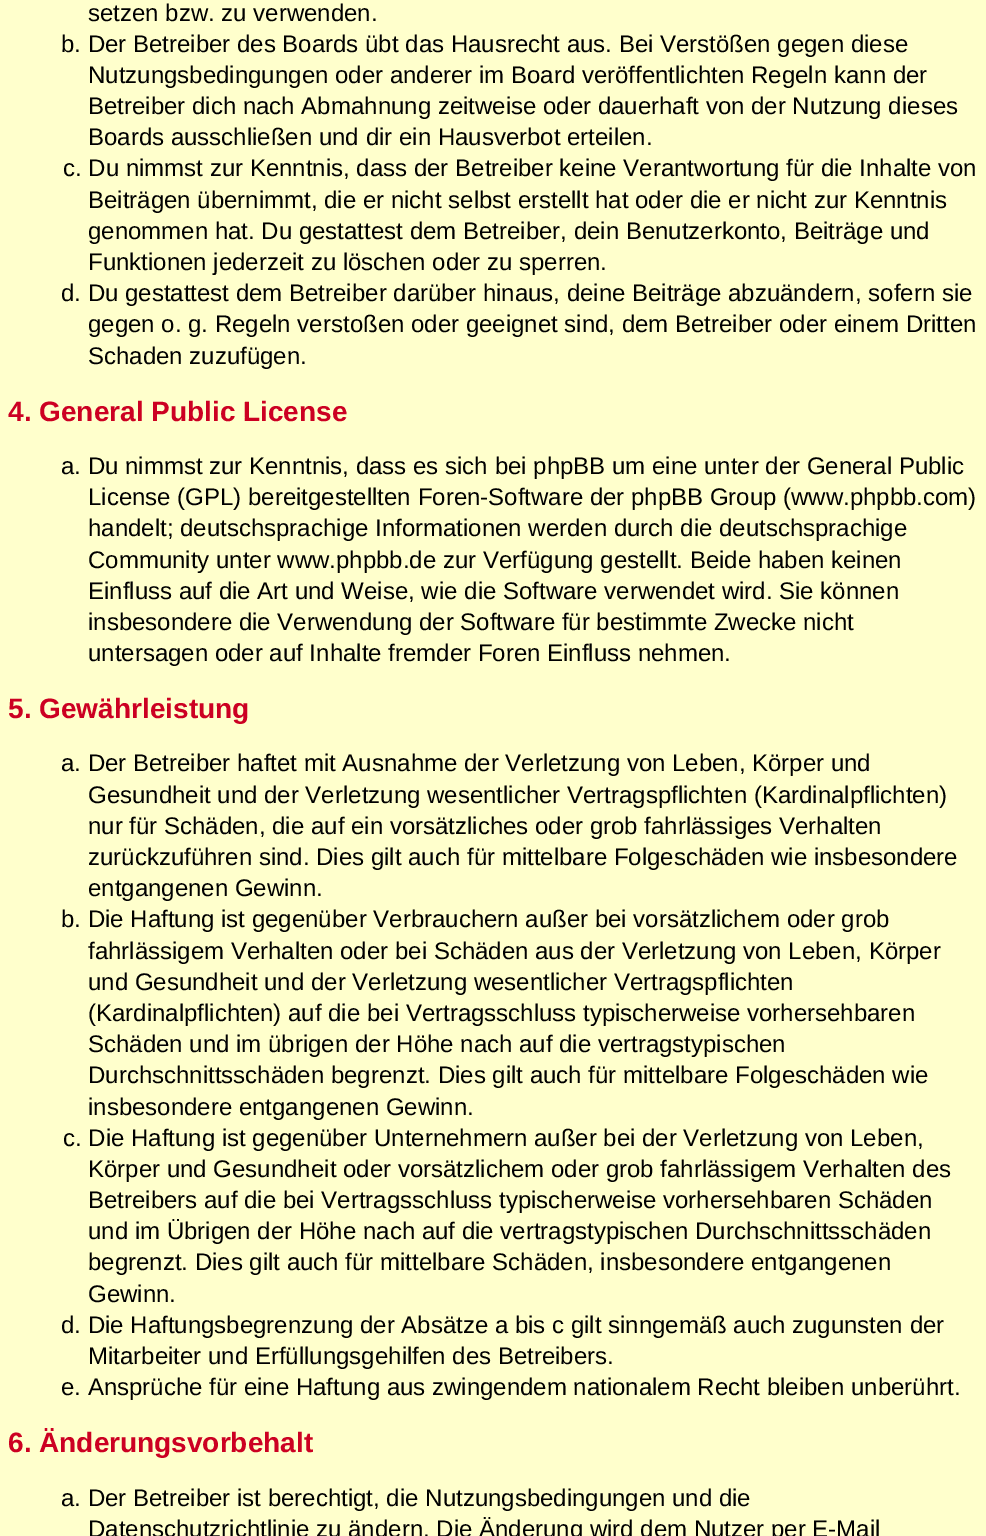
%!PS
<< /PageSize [986 1536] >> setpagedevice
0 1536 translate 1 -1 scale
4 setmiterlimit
1 1 0.8 setrgbcolor
0 0 986 1536 rectfill
/LiberationSans-Regular [24 0 0 -24 0 0] selectfont
0 setgray
88 21 moveto (setzen bzw. zu verwenden.) show
61 52 moveto (b. Der Betreiber des Boards übt das Hausrecht aus. Bei Verstößen gegen diese) show
88 83 moveto (Nutzungsbedingungen oder anderer im Board veröffentlichten Regeln kann der) show
88 114 moveto (Betreiber dich nach Abmahnung zeitweise oder dauerhaft von der Nutzung dieses) show
88 145 moveto (Boards ausschließen und dir ein Hausverbot erteilen.) show
63 176 moveto (c. Du nimmst zur Kenntnis, dass der Betreiber keine Verantwortung für die Inhalte von) show
88 208 moveto (Beiträgen übernimmt, die er nicht selbst erstellt hat oder die er nicht zur Kenntnis) show
88 239 moveto (genommen hat. Du gestattest dem Betreiber, dein Benutzerkonto, Beiträge und) show
88 270 moveto (Funktionen jederzeit zu löschen oder zu sperren.) show
61 301 moveto (d. Du gestattest dem Betreiber darüber hinaus, deine Beiträge abzuändern, sofern sie) show
88 332 moveto (gegen o. g. Regeln verstoßen oder geeignet sind, dem Betreiber oder einem Dritten) show
88 364 moveto (Schaden zuzufügen.) show
/LiberationSans-Bold [28 0 0 -28 0 0] selectfont
0.8 0 0.133 setrgbcolor
8 421 moveto (4. General Public License) show
/LiberationSans-Regular [24 0 0 -24 0 0] selectfont
0 setgray
61 474 moveto (a. Du nimmst zur Kenntnis, dass es sich bei phpBB um eine unter der General Public) show
88 505 moveto (License \(GPL\) bereitgestellten Foren-Software der phpBB Group \(www.phpbb.com\)) show
88 536 moveto (handelt; deutschsprachige Informationen werden durch die deutschsprachige) show
88 568 moveto (Community unter www.phpbb.de zur Verfügung gestellt. Beide haben keinen) show
88 599 moveto (Einfluss auf die Art und Weise, wie die Software verwendet wird. Sie können) show
88 630 moveto (insbesondere die Verwendung der Software für bestimmte Zwecke nicht) show
88 661 moveto (untersagen oder auf Inhalte fremder Foren Einfluss nehmen.) show
/LiberationSans-Bold [28 0 0 -28 0 0] selectfont
0.8 0 0.133 setrgbcolor
8 718 moveto (5. Gewährleistung) show
/LiberationSans-Regular [24 0 0 -24 0 0] selectfont
0 setgray
61 771 moveto (a. Der Betreiber haftet mit Ausnahme der Verletzung von Leben, Körper und) show
88 803 moveto (Gesundheit und der Verletzung wesentlicher Vertragspflichten \(Kardinalpflichten\)) show
88 834 moveto (nur für Schäden, die auf ein vorsätzliches oder grob fahrlässiges Verhalten) show
88 865 moveto (zurückzuführen sind. Dies gilt auch für mittelbare Folgeschäden wie insbesondere) show
88 896 moveto (entgangenen Gewinn.) show
61 927 moveto (b. Die Haftung ist gegenüber Verbrauchern außer bei vorsätzlichem oder grob) show
88 959 moveto (fahrlässigem Verhalten oder bei Schäden aus der Verletzung von Leben, Körper) show
88 990 moveto (und Gesundheit und der Verletzung wesentlicher Vertragspflichten) show
88 1021 moveto (\(Kardinalpflichten\) auf die bei Vertragsschluss typischerweise vorhersehbaren) show
88 1052 moveto (Schäden und im übrigen der Höhe nach auf die vertragstypischen) show
88 1083 moveto (Durchschnittsschäden begrenzt. Dies gilt auch für mittelbare Folgeschäden wie) show
88 1115 moveto (insbesondere entgangenen Gewinn.) show
63 1146 moveto (c. Die Haftung ist gegenüber Unternehmern außer bei der Verletzung von Leben,) show
88 1177 moveto (Körper und Gesundheit oder vorsätzlichem oder grob fahrlässigem Verhalten des) show
88 1208 moveto (Betreibers auf die bei Vertragsschluss typischerweise vorhersehbaren Schäden) show
88 1239 moveto (und im Übrigen der Höhe nach auf die vertragstypischen Durchschnittsschäden) show
88 1270 moveto (begrenzt. Dies gilt auch für mittelbare Schäden, insbesondere entgangenen) show
88 1302 moveto (Gewinn.) show
61 1333 moveto (d. Die Haftungsbegrenzung der Absätze a bis c gilt sinngemäß auch zugunsten der) show
88 1364 moveto (Mitarbeiter und Erfüllungsgehilfen des Betreibers.) show
61 1395 moveto (e. Ansprüche für eine Haftung aus zwingendem nationalem Recht bleiben unberührt.) show
/LiberationSans-Bold [28 0 0 -28 0 0] selectfont
0.8 0 0.133 setrgbcolor
8 1452 moveto (6. Änderungsvorbehalt) show
/LiberationSans-Regular [24 0 0 -24 0 0] selectfont
0 setgray
61 1506 moveto (a. Der Betreiber ist berechtigt, die Nutzungsbedingungen und die) show
88 1537 moveto (Datenschutzrichtlinie zu ändern. Die Änderung wird dem Nutzer per E-Mail) show
showpage
